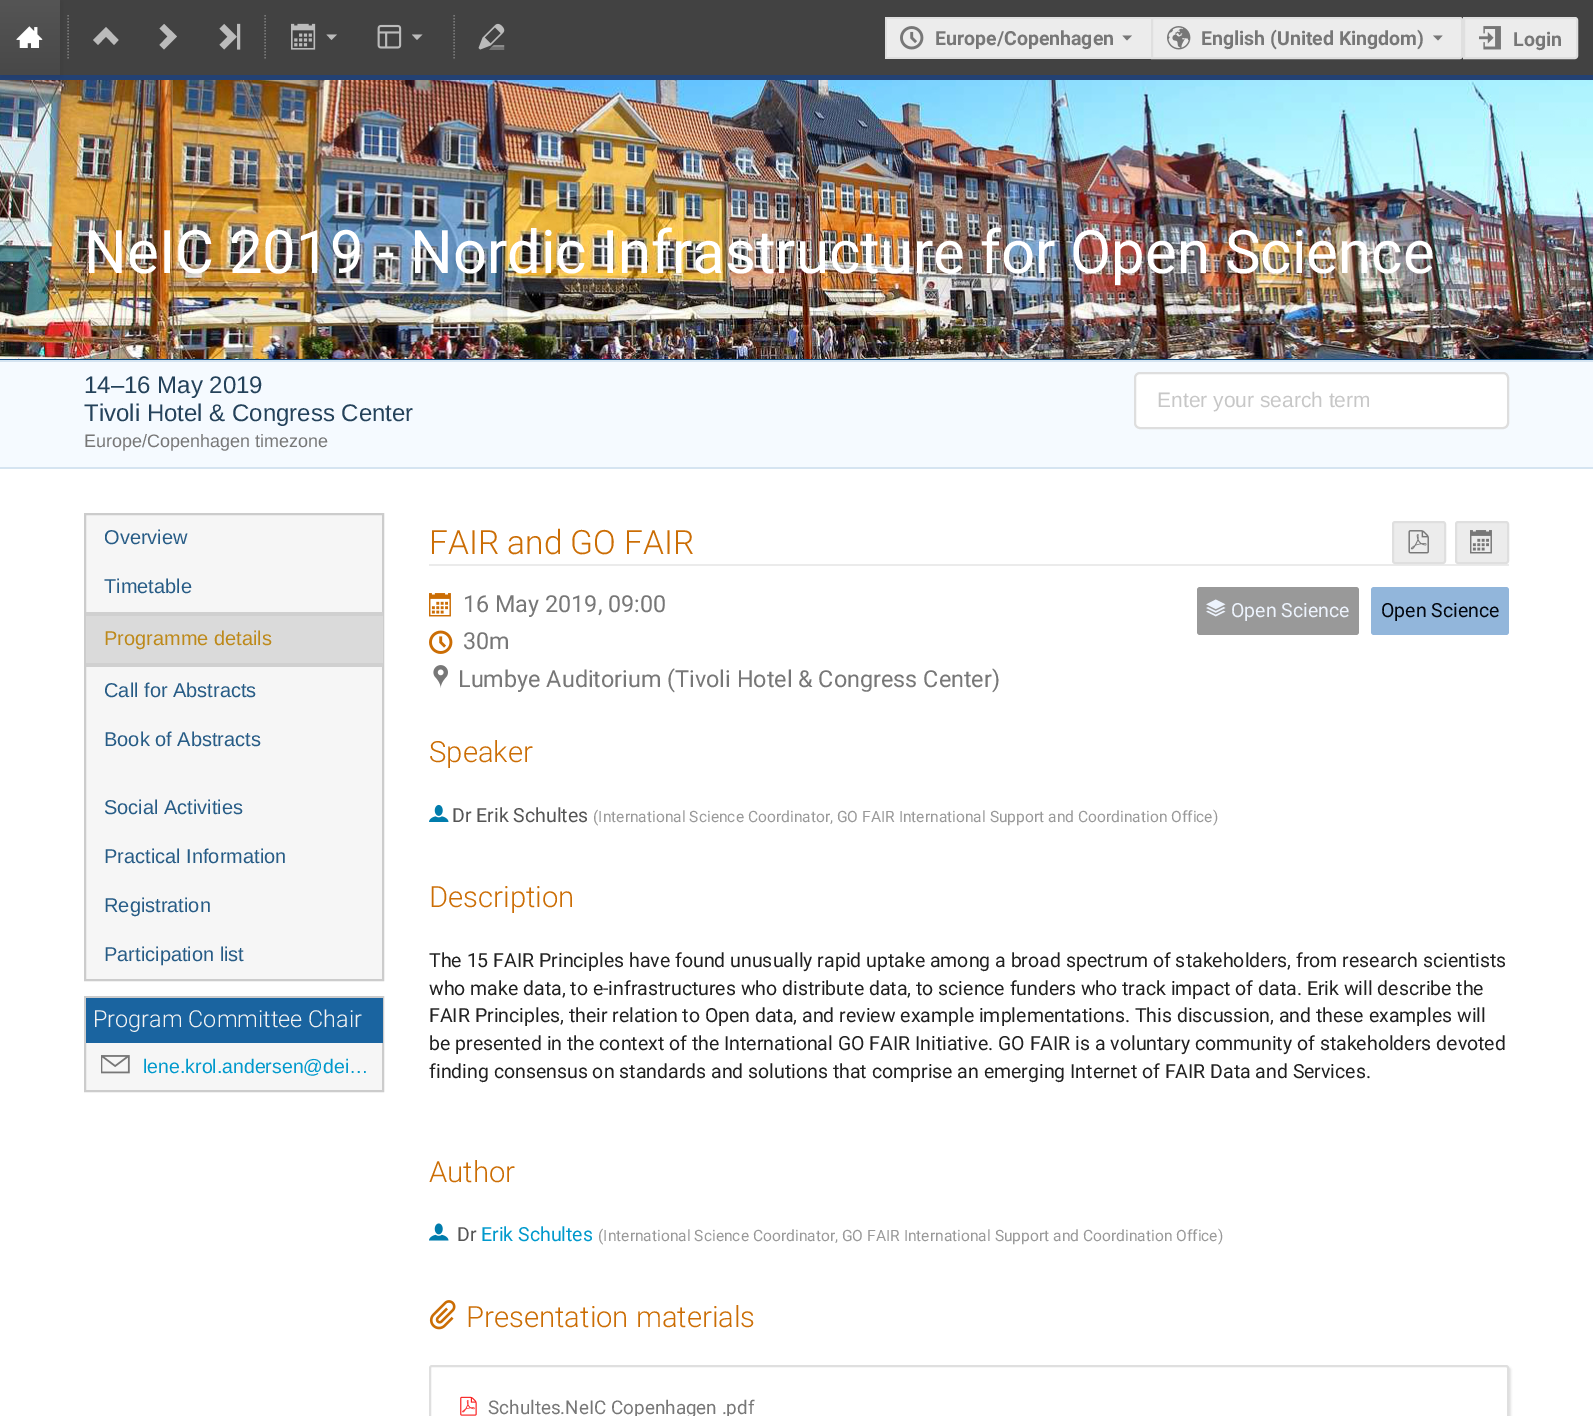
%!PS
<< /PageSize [1593 1416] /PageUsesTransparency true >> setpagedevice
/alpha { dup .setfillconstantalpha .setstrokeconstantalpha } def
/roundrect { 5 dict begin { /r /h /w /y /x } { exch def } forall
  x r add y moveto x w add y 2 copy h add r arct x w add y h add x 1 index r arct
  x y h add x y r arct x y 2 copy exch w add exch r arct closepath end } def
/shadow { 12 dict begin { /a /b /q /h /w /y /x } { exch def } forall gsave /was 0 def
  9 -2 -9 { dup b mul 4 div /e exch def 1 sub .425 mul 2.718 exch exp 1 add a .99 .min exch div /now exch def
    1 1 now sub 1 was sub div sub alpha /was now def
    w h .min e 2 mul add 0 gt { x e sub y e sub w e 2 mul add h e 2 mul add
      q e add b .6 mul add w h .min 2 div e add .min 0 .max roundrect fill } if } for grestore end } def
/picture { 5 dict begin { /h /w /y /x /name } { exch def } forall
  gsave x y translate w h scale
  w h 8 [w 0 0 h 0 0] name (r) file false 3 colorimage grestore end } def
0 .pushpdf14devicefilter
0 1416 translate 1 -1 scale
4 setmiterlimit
1 setgray
0 0 1593 1416 rectfill
0.259 setgray
60 0 1533 75 rectfill
(img9.rgb) 0 80 1593 279 picture
0.137 0.255 0.451 setrgbcolor
0 75 1593 5 rectfill
0.078 setgray
2 2 60 75 0 3 0.1 shadow
gsave newpath 0 0 moveto 60 0 lineto 60 75 lineto 0 75 lineto closepath clip newpath
<< /ShadingType 2 /ColorSpace /DeviceRGB /Coords [30 0 30 75] /Extend [true true] /Function << /FunctionType 2 /Domain [0 1] /C0 [0.333 0.333 0.333] /C1 [0.282 0.282 0.282] /N 1 >> >> shfill grestore
(img1.rgb) 16 26 27 22 picture
0.467 setgray
1.5 setlinewidth
[1.5 1.5] 0 setdash
newpath 68 15 moveto 68 60 lineto stroke
0.733 setgray
newpath 93 40 moveto 98 45 lineto 106 36.5 lineto 114 45 lineto 118.5 40 lineto 106 27 lineto closepath fill
newpath 164 24 moveto 159.5 28.5 lineto 167.5 36.5 lineto 159.5 45 lineto 164 49.5 lineto 177 36.5 lineto closepath fill
(img2.rgb) 219 23 22 27 picture
0.467 setgray
newpath 265 15 moveto 265 60 lineto stroke
(img3.rgb) 291 23 25 27 picture
0.733 setgray
newpath 326.5 34.5 moveto 331.5 40 lineto 337 34.5 lineto closepath fill
(img4.rgb) 377 24 25 25 picture
newpath 412 34.5 moveto 417 40 lineto 422.5 34.5 lineto closepath fill
0.467 setgray
newpath 454 15 moveto 454 60 lineto stroke
(img5.rgb) 478 23 27 27 picture
0.925 setgray
887 19 264 38 rectfill
0.875 setgray
885 17 266 2 rectfill
885 57 266 2 rectfill
885 17 2 42 rectfill
(img6.rgb) 900 26 24 24 picture
/Roboto-Bold [19.5 0 0 -19.5 0 0] selectfont
0.467 setgray
935 45 moveto (Europe/Copenhagen) show
newpath 1122.5 35.5 moveto 1127 40.5 lineto 1132 35.5 lineto closepath fill
0.925 setgray
newpath 1152 18 moveto 1460 18 lineto 1461 18 1462 19 1462 20 curveto 1462 56 lineto 1462 57 1461 58 1460 58 curveto 1152 58 lineto closepath gsave fill grestore
0.875 setgray
2 setlinewidth
[] 0 setdash
stroke
(img7.rgb) 1167 26 24 24 picture
0.467 setgray
1201 45 moveto (English \(United Kingdom\)) show
newpath 1433 35.5 moveto 1438 40.5 lineto 1442.5 35.5 lineto closepath fill
0.925 setgray
newpath 1464 18 moveto 1575 18 lineto 1576 18 1577 19 1577 20 curveto 1577 56 lineto 1577 57 1576 58 1575 58 curveto 1464 58 lineto closepath gsave fill grestore
0.875 setgray
stroke
(img8.rgb) 1479 26 22 24 picture
0.467 setgray
1513 46 moveto (Login) show
0.059 0.298 0.502 setrgbcolor
0 359 1593 1 rectfill
/Roboto-Regular [60 0 0 -60 0 0] selectfont
1 setgray
84 273 moveto (NeIC 2019 - Nordic Infrastructure for Open Science) show
0.961 0.98 1 setrgbcolor
0 362 1593 105 rectfill
0.835 0.894 0.945 setrgbcolor
0 360 1593 2 rectfill
0 467 1593 2 rectfill
/LiberationSans-Regular [24 0 0 -24 0 0] selectfont
0.141 0.259 0.353 setrgbcolor
84 393 moveto (14–16 May 2019) show
84 421 moveto (Tivoli Hotel & Congress Center) show
/LiberationSans-Regular [18 0 0 -18 0 0] selectfont
0.467 setgray
84 447 moveto (Europe/Copenhagen timezone) show
1 setgray
1135 373 373 55 5 roundrect gsave fill grestore
0.871 setgray
stroke
/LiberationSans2-Regular [21 0 0 -21 0 0] selectfont
0.78 setgray
1157 407 moveto (Enter your search term) show
0.965 setgray
newpath 85 514 moveto 383 514 lineto 383 980 lineto 85 980 lineto closepath gsave fill grestore
0.8 setgray
stroke
/LiberationSans2-Regular [20 0 0 -20 0 0] selectfont
0.153 0.361 0.525 setrgbcolor
104 544 moveto (Overview) show
104 593 moveto (Timetable) show
0.855 setgray
86 616 297 47 rectfill
0.816 setgray
86 612 297 4 rectfill
86 663 297 4 rectfill
0.741 0.537 0.102 setrgbcolor
104 645 moveto (Programme details) show
0.153 0.361 0.525 setrgbcolor
104 697 moveto (Call for Abstracts) show
104 746 moveto (Book of Abstracts) show
104 814 moveto (Social Activities) show
104 863 moveto (Practical Information) show
104 912 moveto (Registration) show
104 961 moveto (Participation list) show
0.965 setgray
86 1043 296 47 rectfill
0.8 setgray
85 997 298 94 rectstroke
0.102 0.392 0.627 setrgbcolor
86 998 297 45 rectfill
/Roboto-Light [23.4 0 0 -23.4 0 0] selectfont
0.953 setgray
93 1027 moveto (Program Committee Chair) show
(img10.rgb) 101 1055 29 19 picture
/LiberationSans-Regular [19.5 0 0 -19.5 0 0] selectfont
0 0.6 0.8 setrgbcolor
143 1073 moveto (lene.krol.andersen@dei…) show
0.922 setgray
429 564 1080 2 rectfill
/Roboto-Light [33.5 0 0 -33.5 0 0] selectfont
0.796 0.427 0.016 setrgbcolor
429 554 moveto (FAIR and GO FAIR) show
0.925 setgray
1393 522 52 41 2 roundrect gsave fill grestore
0.875 setgray
stroke
(img11.rgb) 1408 530 21 24 picture
0.925 setgray
1456 522 52 41 2 roundrect gsave fill grestore
0.875 setgray
stroke
(img12.rgb) 1470 530 22 24 picture
(img13.rgb) 429 593 22 24 picture
/Roboto-Regular [23.4 0 0 -23.4 0 0] selectfont
0.467 setgray
463 612 moveto (16 May 2019, 09:00) show
(img14.rgb) 429 630 24 24 picture
463 649 moveto (30m) show
(img15.rgb) 433 665 15 23 picture
458 687 moveto (Lumbye Auditorium \(Tivoli Hotel & Congress Center\)) show
0.6 setgray
1197 587 162 48 3 roundrect fill
(img16.rgb) 1206 599 20 18 picture
/Roboto-Regular [19.5 0 0 -19.5 0 0] selectfont
0.929 0.953 0.992 setrgbcolor
1231 617 moveto (Open Science) show
0.573 0.714 0.859 setrgbcolor
1371 587 138 48 3 roundrect fill
0.012 0.027 0.059 setrgbcolor
1381 617 moveto (Open Science) show
/Roboto-Light [29.25 0 0 -29.25 0 0] selectfont
0.796 0.427 0.016 setrgbcolor
429 762 moveto (Speaker) show
(img17.rgb) 429 804 20 18 picture
/Roboto-Regular [19.5 0 0 -19.5 0 0] selectfont
0.333 setgray
452 822 moveto (Dr Erik Schultes) show
/Roboto-Regular [15.6 0 0 -15.6 0 0] selectfont
0.6 setgray
593 822 moveto (\(International Science Coordinator, GO FAIR International Support and Coordination Office\)) show
/Roboto-Light [29.25 0 0 -29.25 0 0] selectfont
0.796 0.427 0.016 setrgbcolor
429 907 moveto (Description) show
/Roboto-Regular [19.5 0 0 -19.5 0 0] selectfont
0.129 setgray
429 967 moveto (The 15 FAIR Principles have found unusually rapid uptake among a broad spectrum of stakeholders, from research scientists) show
429 995 moveto (who make data, to e-infrastructures who distribute data, to science funders who track impact of data. Erik will describe the) show
429 1022 moveto (FAIR Principles, their relation to Open data, and review example implementations. This discussion, and these examples will) show
429 1050 moveto (be presented in the context of the International GO FAIR Initiative. GO FAIR is a voluntary community of stakeholders devoted) show
429 1078 moveto (finding consensus on standards and solutions that comprise an emerging Internet of FAIR Data and Services.) show
/Roboto-Light [29.25 0 0 -29.25 0 0] selectfont
0.796 0.427 0.016 setrgbcolor
429 1182 moveto (Author) show
(img18.rgb) 429 1223 20 18 picture
/Roboto-Regular [19.5 0 0 -19.5 0 0] selectfont
0.333 setgray
457 1241 moveto (Dr) show
0 0.6 0.8 setrgbcolor
481 1241 moveto (Erik Schultes) show
/Roboto-Regular [15.6 0 0 -15.6 0 0] selectfont
0.6 setgray
598 1241 moveto (\(International Science Coordinator, GO FAIR International Support and Coordination Office\)) show
(img19.rgb) 429 1300 27 30 picture
/Roboto-Light [29.25 0 0 -29.25 0 0] selectfont
0.796 0.427 0.016 setrgbcolor
466 1327 moveto (Presentation materials) show
0.882 setgray
431 1367 1080 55 3 1 1 shadow
1 setgray
430 1366 1078 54 2 roundrect gsave fill grestore
0.875 setgray
stroke
(img20.rgb) 460 1396 17 20 picture
/Roboto-Regular [18.9 0 0 -18.9 0 0] selectfont
0.467 setgray
488 1414 moveto (Schultes.NeIC Copenhagen .pdf) show
.poppdf14devicefilter showpage
